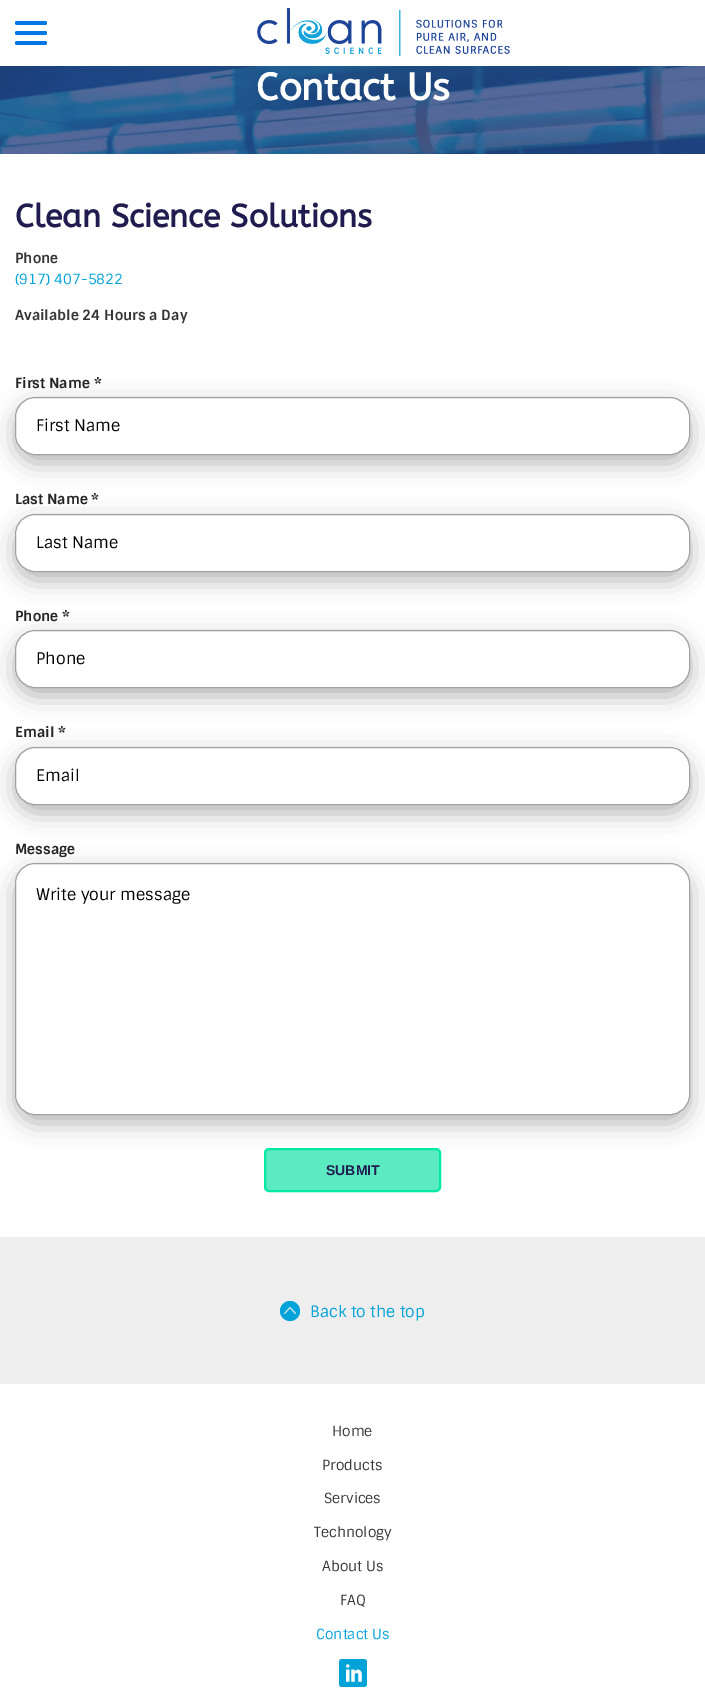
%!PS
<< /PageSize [705 1688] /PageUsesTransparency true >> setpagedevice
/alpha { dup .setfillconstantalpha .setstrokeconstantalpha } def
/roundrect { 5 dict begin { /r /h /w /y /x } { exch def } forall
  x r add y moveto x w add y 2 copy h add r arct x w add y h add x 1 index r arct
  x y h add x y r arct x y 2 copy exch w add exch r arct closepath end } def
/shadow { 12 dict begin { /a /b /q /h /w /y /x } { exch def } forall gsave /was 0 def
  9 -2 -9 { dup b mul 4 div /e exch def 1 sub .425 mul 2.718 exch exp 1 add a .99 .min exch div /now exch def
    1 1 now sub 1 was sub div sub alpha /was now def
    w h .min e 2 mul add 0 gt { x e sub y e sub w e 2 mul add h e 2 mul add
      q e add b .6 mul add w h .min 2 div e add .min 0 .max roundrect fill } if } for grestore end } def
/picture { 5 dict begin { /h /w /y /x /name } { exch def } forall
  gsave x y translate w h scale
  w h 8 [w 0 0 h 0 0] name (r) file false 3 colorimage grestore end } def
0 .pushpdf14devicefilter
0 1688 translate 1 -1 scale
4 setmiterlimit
1 setgray
0 0 705 1688 rectfill
0.008 0.463 0.886 setrgbcolor
15 31 32 4 2 roundrect fill
15 21 32 4 2 roundrect fill
15 41 32 4 2 roundrect fill
(img1.rgb) 257 8 253 49 picture
(img2.rgb) 0 66 705 88 picture
/ABeeZee-Bold [38 0 0 -38 0 0] selectfont
1 setgray
256 100 moveto (Contact Us) show
/ABeeZee-Bold [32 0 0 -32 0 0] selectfont
0.125 0.11 0.31 setrgbcolor
15 227 moveto (Clean Science Solutions) show
/Sintony-Bold [14 0 0 -14 0 0] selectfont
0.212 setgray
15 263 moveto (Phone) show
/Sintony-Regular [14 0 0 -14 0 0] selectfont
0.008 0.639 0.851 setrgbcolor
15 284 moveto (\(917\) 407-5822) show
/Sintony-Bold [14 0 0 -14 0 0] selectfont
0.212 setgray
15 320 moveto (Available 24 Hours a Day) show
0.145 setgray
15 388 moveto (First Name *) show
0 setgray
15 405 675 58 20 12 0.3 shadow
1 setgray
15.5 397.5 674 57 19.5 roundrect gsave fill grestore
0.631 setgray
stroke
/Sintony-Regular [16 0 0 -16 0 0] selectfont
0 setgray
36 431 moveto (First Name) show
/Sintony-Bold [14 0 0 -14 0 0] selectfont
0.145 setgray
15 504 moveto (Last Name *) show
0 setgray
15 522 675 58 20 12 0.3 shadow
1 setgray
15.5 514.5 674 57 19.5 roundrect gsave fill grestore
0.631 setgray
stroke
/Sintony-Regular [16 0 0 -16 0 0] selectfont
0 setgray
36 548 moveto (Last Name) show
/Sintony-Bold [14 0 0 -14 0 0] selectfont
0.145 setgray
15 621 moveto (Phone *) show
0 setgray
15 638 675 58 20 12 0.3 shadow
1 setgray
15.5 630.5 674 57 19.5 roundrect gsave fill grestore
0.631 setgray
stroke
/Sintony-Regular [16 0 0 -16 0 0] selectfont
0 setgray
36 664 moveto (Phone) show
/Sintony-Bold [14 0 0 -14 0 0] selectfont
0.145 setgray
15 737 moveto (Email *) show
0 setgray
15 755 675 58 20 12 0.3 shadow
1 setgray
15.5 747.5 674 57 19.5 roundrect gsave fill grestore
0.631 setgray
stroke
/Sintony-Regular [16 0 0 -16 0 0] selectfont
0 setgray
36 781 moveto (Email) show
/Sintony-Bold [14 0 0 -14 0 0] selectfont
0.145 setgray
15 854 moveto (Message) show
0 setgray
15 871 675 252 20 12 0.3 shadow
1 setgray
15.5 863.5 674 251 19.5 roundrect gsave fill grestore
0.631 setgray
stroke
/Sintony-Regular [16 0 0 -16 0 0] selectfont
0 setgray
36 900 moveto (Write your message) show
0.361 0.922 0.753 setrgbcolor
265 1149 175 42 4 roundrect gsave fill grestore
0 0.918 0.643 setrgbcolor
2 setlinewidth
stroke
/LiberationSans-Bold [14 0 0 -14 0 0] selectfont
0.125 0.11 0.31 setrgbcolor
326 1175 moveto (SUBMIT) show
0.933 setgray
0 1237 705 147 rectfill
0.008 0.639 0.851 setrgbcolor
newpath 290 1311 10 0 360 arc closepath fill
(img3.rgb) 284 1307 12 7 picture
/Sintony-Regular [15.75 0 0 -15.75 0 0] selectfont
310 1317 moveto (Back to the top) show
/Sintony-Regular [14 0 0 -14 0 0] selectfont
0.212 setgray
332 1436 moveto (Home) show
322 1470 moveto (Products) show
324 1503 moveto (Services) show
314 1537 moveto (Technology) show
322 1571 moveto (About Us) show
340 1605 moveto (FAQ) show
0.008 0.639 0.851 setrgbcolor
316 1639 moveto (Contact Us) show
(img4.rgb) 339 1659 28 28 picture
.poppdf14devicefilter showpage
